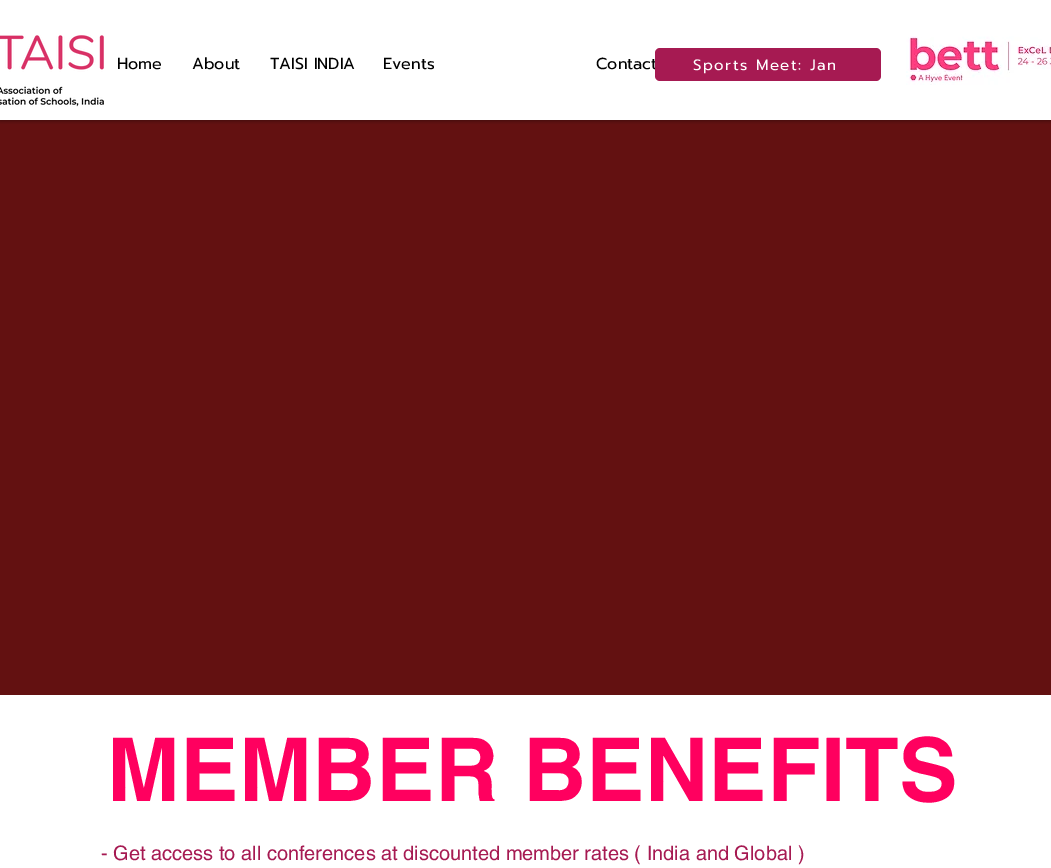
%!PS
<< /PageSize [1051 868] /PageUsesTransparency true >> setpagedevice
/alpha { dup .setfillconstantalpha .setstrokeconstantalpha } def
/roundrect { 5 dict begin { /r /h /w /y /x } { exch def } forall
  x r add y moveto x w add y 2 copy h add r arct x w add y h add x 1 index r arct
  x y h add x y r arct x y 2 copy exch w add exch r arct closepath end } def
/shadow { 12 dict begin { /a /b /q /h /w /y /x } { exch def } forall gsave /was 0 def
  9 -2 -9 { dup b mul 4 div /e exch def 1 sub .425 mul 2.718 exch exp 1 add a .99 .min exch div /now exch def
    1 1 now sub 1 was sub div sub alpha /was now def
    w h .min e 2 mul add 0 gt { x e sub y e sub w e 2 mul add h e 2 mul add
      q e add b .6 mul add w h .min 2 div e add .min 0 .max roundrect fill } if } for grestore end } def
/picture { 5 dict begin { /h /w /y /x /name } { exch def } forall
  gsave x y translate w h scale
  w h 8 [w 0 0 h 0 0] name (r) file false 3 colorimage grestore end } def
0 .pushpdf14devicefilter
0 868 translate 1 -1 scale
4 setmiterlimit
1 setgray
0 0 1051 868 rectfill
0.388 0.067 0.067 setrgbcolor
0 120 1051 575 rectfill
gsave
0 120 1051 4 rectclip
0 setgray
0 0 1051 120 0 2.5 0.5 shadow
grestore
(img1.rgb) 0 35 104 72 picture
/Prompt-Regular [16 0 0 -16 0 0] selectfont
0 setgray
117 69 moveto (Home) show
192 69 moveto (About) show
270 69 moveto (TAISI INDIA) show
383 69 moveto (Events) show
596 69 moveto (Contact) show
0.651 0.102 0.322 setrgbcolor
655 48 226 33 5 roundrect fill
/Prompt-Regular [15 0 0 -15 0 0] selectfont
1 setgray
693 70 moveto 1.5 0 (Sports Meet: Jan) ashow
(img2.rgb) 906 36 145 49 picture
/helvetica-Bold [88 0 0 -88 0 0] selectfont
1 0 0.373 setrgbcolor
107 801 moveto (MEMBER BENEFITS) show
/helvetica-Regular [20 0 0 -20 0 0] selectfont
0.651 0.102 0.322 setrgbcolor
101 860 moveto (- Get access to all conferences at discounted member rates \( India and Global \)) show
.poppdf14devicefilter showpage
